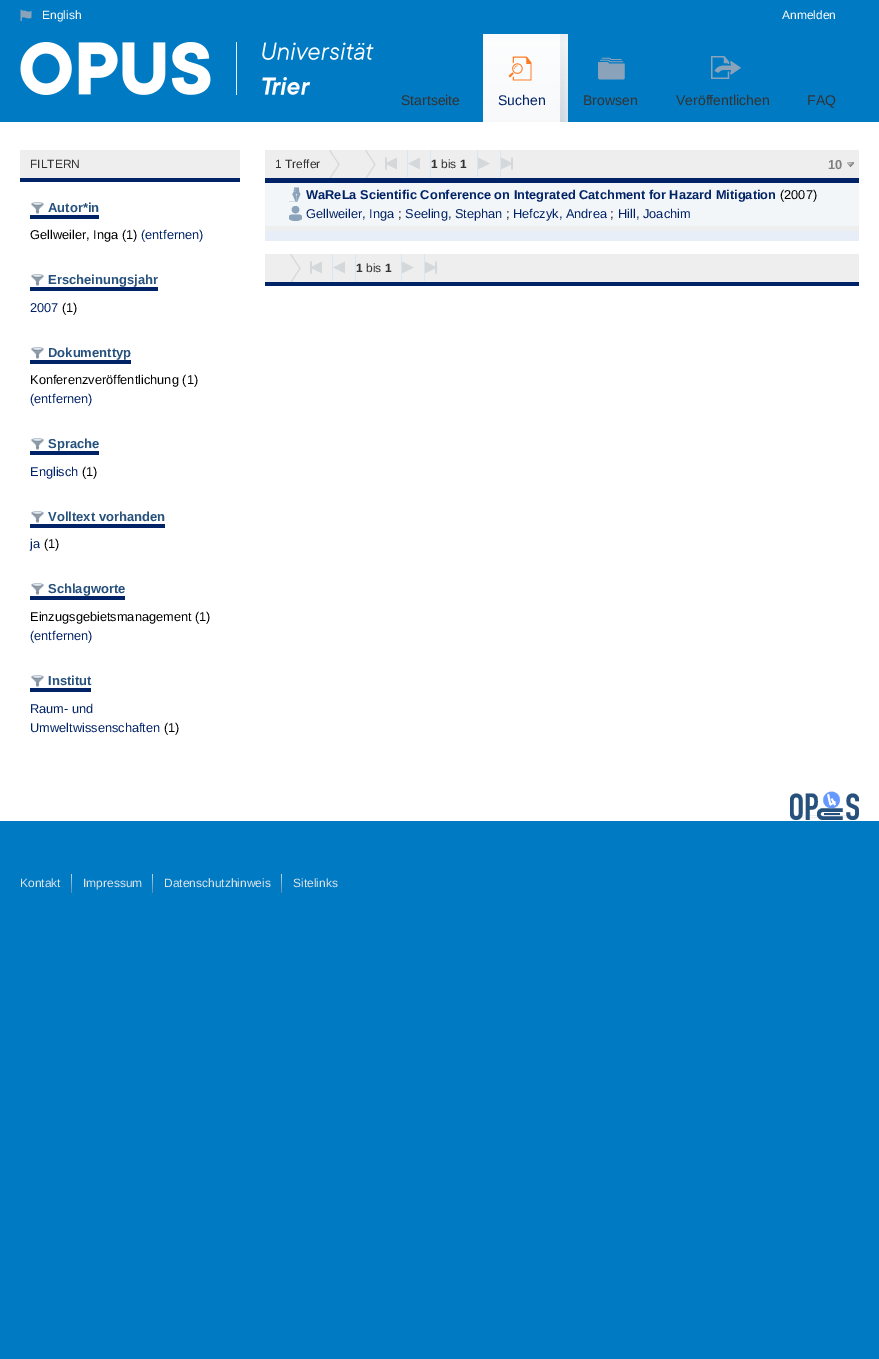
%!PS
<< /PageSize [879 1359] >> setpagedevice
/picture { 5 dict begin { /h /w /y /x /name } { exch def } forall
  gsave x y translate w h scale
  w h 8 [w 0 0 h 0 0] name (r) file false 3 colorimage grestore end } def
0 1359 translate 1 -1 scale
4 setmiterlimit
0 0.478 0.765 setrgbcolor
0 0 879 1359 rectfill
(img1.rgb) 20 9 12 12 picture
/LiberationSans-Regular [12 0 0 -12 0 0] selectfont
1 setgray
42 19 moveto (English) show
782 19 moveto (Anmelden) show
(img2.rgb) 20 42 354 53 picture
/LiberationSans-Regular [14 0 0 -14 0 0] selectfont
0.2 setgray
401 105 moveto (Startseite) show
(img3.rgb) 483 34 85 88 picture
(img4.rgb) 508 56 24 25 picture
0 0.133 0.4 setrgbcolor
498 105 moveto (Suchen) show
(img5.rgb) 598 57 27 23 picture
0.2 setgray
583 105 moveto (Browsen) show
(img6.rgb) 711 56 30 23 picture
676 105 moveto (Veröffentlichen) show
807 105 moveto (FAQ) show
1 setgray
0 122 879 699 rectfill
0.933 setgray
20 150 220 28 rectfill
0 0.133 0.4 setrgbcolor
20 178 220 4 rectfill
/LiberationSans-Regular [12 0 0 -12 0 0] selectfont
0.2 setgray
30 168 moveto (FILTERN) show
(img7.rgb) 31 202 13 12 picture
0 0.133 0.4 setrgbcolor
30 215 69 4 rectfill
/LiberationSans-Bold [13 0 0 -13 0 0] selectfont
0.149 0.318 0.49 setrgbcolor
48 212 moveto (Autor*in) show
/LiberationSans-Regular [12.8 0 0 -12.8 0 0] selectfont
0 setgray
30 239 moveto (Gellweiler, Inga \(1\)) show
0 0.133 0.4 setrgbcolor
141 239 moveto (\(entfernen\)) show
(img7.rgb) 31 274 13 12 picture
30 287 128 4 rectfill
/LiberationSans-Bold [13 0 0 -13 0 0] selectfont
0.149 0.318 0.49 setrgbcolor
48 284 moveto (Erscheinungsjahr) show
/LiberationSans-Regular [12.8 0 0 -12.8 0 0] selectfont
0 0.133 0.4 setrgbcolor
30 312 moveto (2007) show
0 setgray
62 312 moveto (\(1\)) show
(img7.rgb) 31 347 13 12 picture
0 0.133 0.4 setrgbcolor
30 360 101 4 rectfill
/LiberationSans-Bold [13 0 0 -13 0 0] selectfont
0.149 0.318 0.49 setrgbcolor
48 357 moveto (Dokumenttyp) show
/LiberationSans-Regular [12.8 0 0 -12.8 0 0] selectfont
0 setgray
30 384 moveto (Konferenzveröffentlichung \(1\)) show
0 0.133 0.4 setrgbcolor
30 403 moveto (\(entfernen\)) show
(img7.rgb) 31 438 13 12 picture
30 451 69 4 rectfill
/LiberationSans-Bold [13 0 0 -13 0 0] selectfont
0.149 0.318 0.49 setrgbcolor
48 448 moveto (Sprache) show
/LiberationSans-Regular [12.8 0 0 -12.8 0 0] selectfont
0 0.133 0.4 setrgbcolor
30 476 moveto (Englisch) show
0 setgray
82 476 moveto (\(1\)) show
(img7.rgb) 31 511 13 12 picture
0 0.133 0.4 setrgbcolor
30 524 135 4 rectfill
/LiberationSans-Bold [13 0 0 -13 0 0] selectfont
0.149 0.318 0.49 setrgbcolor
48 521 moveto (Volltext vorhanden) show
/LiberationSans-Regular [12.8 0 0 -12.8 0 0] selectfont
0 0.133 0.4 setrgbcolor
30 548 moveto (ja) show
0 setgray
44 548 moveto (\(1\)) show
(img7.rgb) 31 583 13 12 picture
0 0.133 0.4 setrgbcolor
30 596 95 4 rectfill
/LiberationSans-Bold [13 0 0 -13 0 0] selectfont
0.149 0.318 0.49 setrgbcolor
48 593 moveto (Schlagworte) show
/LiberationSans-Regular [12.8 0 0 -12.8 0 0] selectfont
0 setgray
30 621 moveto (Einzugsgebietsmanagement \(1\)) show
0 0.133 0.4 setrgbcolor
30 640 moveto (\(entfernen\)) show
(img7.rgb) 31 675 13 12 picture
30 688 61 4 rectfill
/LiberationSans-Bold [13 0 0 -13 0 0] selectfont
0.149 0.318 0.49 setrgbcolor
48 685 moveto (Institut) show
/LiberationSans-Regular [12.8 0 0 -12.8 0 0] selectfont
0 0.133 0.4 setrgbcolor
30 713 moveto (Raum- und) show
30 732 moveto (Umweltwissenschaften) show
0 setgray
164 732 moveto (\(1\)) show
0.933 setgray
265 150 594 28 rectfill
0 0.133 0.4 setrgbcolor
265 178 594 5 rectfill
(img8.rgb) 329 150 11 28 picture
/LiberationSans-Regular [12 0 0 -12 0 0] selectfont
0.2 setgray
275 168 moveto (1 Treffer) show
(img8.rgb) 365 150 11 28 picture
(img9.rgb) 385 157 12 13 picture
0.855 0.898 0.953 setrgbcolor
407 150 1 27 rectfill
(img10.rgb) 408 157 12 13 picture
430 150 1 28 rectfill
/LiberationSans-Bold [12 0 0 -12 0 0] selectfont
0.2 setgray
431 168 moveto (1) show
/LiberationSans-Regular [12 0 0 -12 0 0] selectfont
441 168 moveto (bis) show
/LiberationSans-Bold [12 0 0 -12 0 0] selectfont
460 168 moveto (1) show
0.855 0.898 0.953 setrgbcolor
477 150 1 27 rectfill
(img11.rgb) 478 157 12 13 picture
500 150 1 27 rectfill
(img12.rgb) 501 157 12 13 picture
(img13.rgb) 847 162 7 5 picture
/LiberationSans-Bold [13 0 0 -13 0 0] selectfont
0.502 setgray
828 169 moveto (10) show
0.933 setgray
265 226 594 5 rectfill
0.953 0.965 0.973 setrgbcolor
265 183 594 43 rectfill
(img14.rgb) 289 187 12 15 picture
/LiberationSans-Bold [12.8 0 0 -12.8 0 0] selectfont
0 0.133 0.4 setrgbcolor
306 199 moveto (WaReLa Scientific Conference on Integrated Catchment for Hazard Mitigation) show
/LiberationSans-Regular [12.8 0 0 -12.8 0 0] selectfont
0 setgray
780 199 moveto (\(2007\)) show
(img15.rgb) 289 206 13 15 picture
0 0.133 0.4 setrgbcolor
306 218 moveto (Gellweiler, Inga) show
0 setgray
398 218 moveto (;) show
0 0.133 0.4 setrgbcolor
405 218 moveto (Seeling, Stephan) show
0 setgray
506 218 moveto (;) show
0 0.133 0.4 setrgbcolor
513 218 moveto (Hefczyk, Andrea) show
0 setgray
610 218 moveto (;) show
0 0.133 0.4 setrgbcolor
618 218 moveto (Hill, Joachim) show
0.91 0.933 0.969 setrgbcolor
265 231 594 10 rectfill
0.933 setgray
265 254 594 28 rectfill
0 0.133 0.4 setrgbcolor
265 282 594 4 rectfill
(img8.rgb) 290 254 11 28 picture
(img9.rgb) 310 261 12 13 picture
0.855 0.898 0.953 setrgbcolor
332 254 1 27 rectfill
(img10.rgb) 333 261 12 13 picture
355 254 1 28 rectfill
/LiberationSans-Bold [12 0 0 -12 0 0] selectfont
0.2 setgray
356 272 moveto (1) show
/LiberationSans-Regular [12 0 0 -12 0 0] selectfont
366 272 moveto (bis) show
/LiberationSans-Bold [12 0 0 -12 0 0] selectfont
385 272 moveto (1) show
0.855 0.898 0.953 setrgbcolor
401 254 1 27 rectfill
(img11.rgb) 402 261 12 13 picture
424 254 1 27 rectfill
(img12.rgb) 425 261 12 13 picture
(img16.rgb) 790 791 69 29 picture
(img17.rgb) 71 874 1 19 picture
/LiberationSans-Regular [12 0 0 -12 0 0] selectfont
0.871 0.898 0.922 setrgbcolor
20 887 moveto (Kontakt) show
(img17.rgb) 152 874 1 19 picture
83 887 moveto (Impressum) show
(img17.rgb) 281 874 1 19 picture
164 887 moveto (Datenschutzhinweis) show
293 887 moveto (Sitelinks) show
showpage
